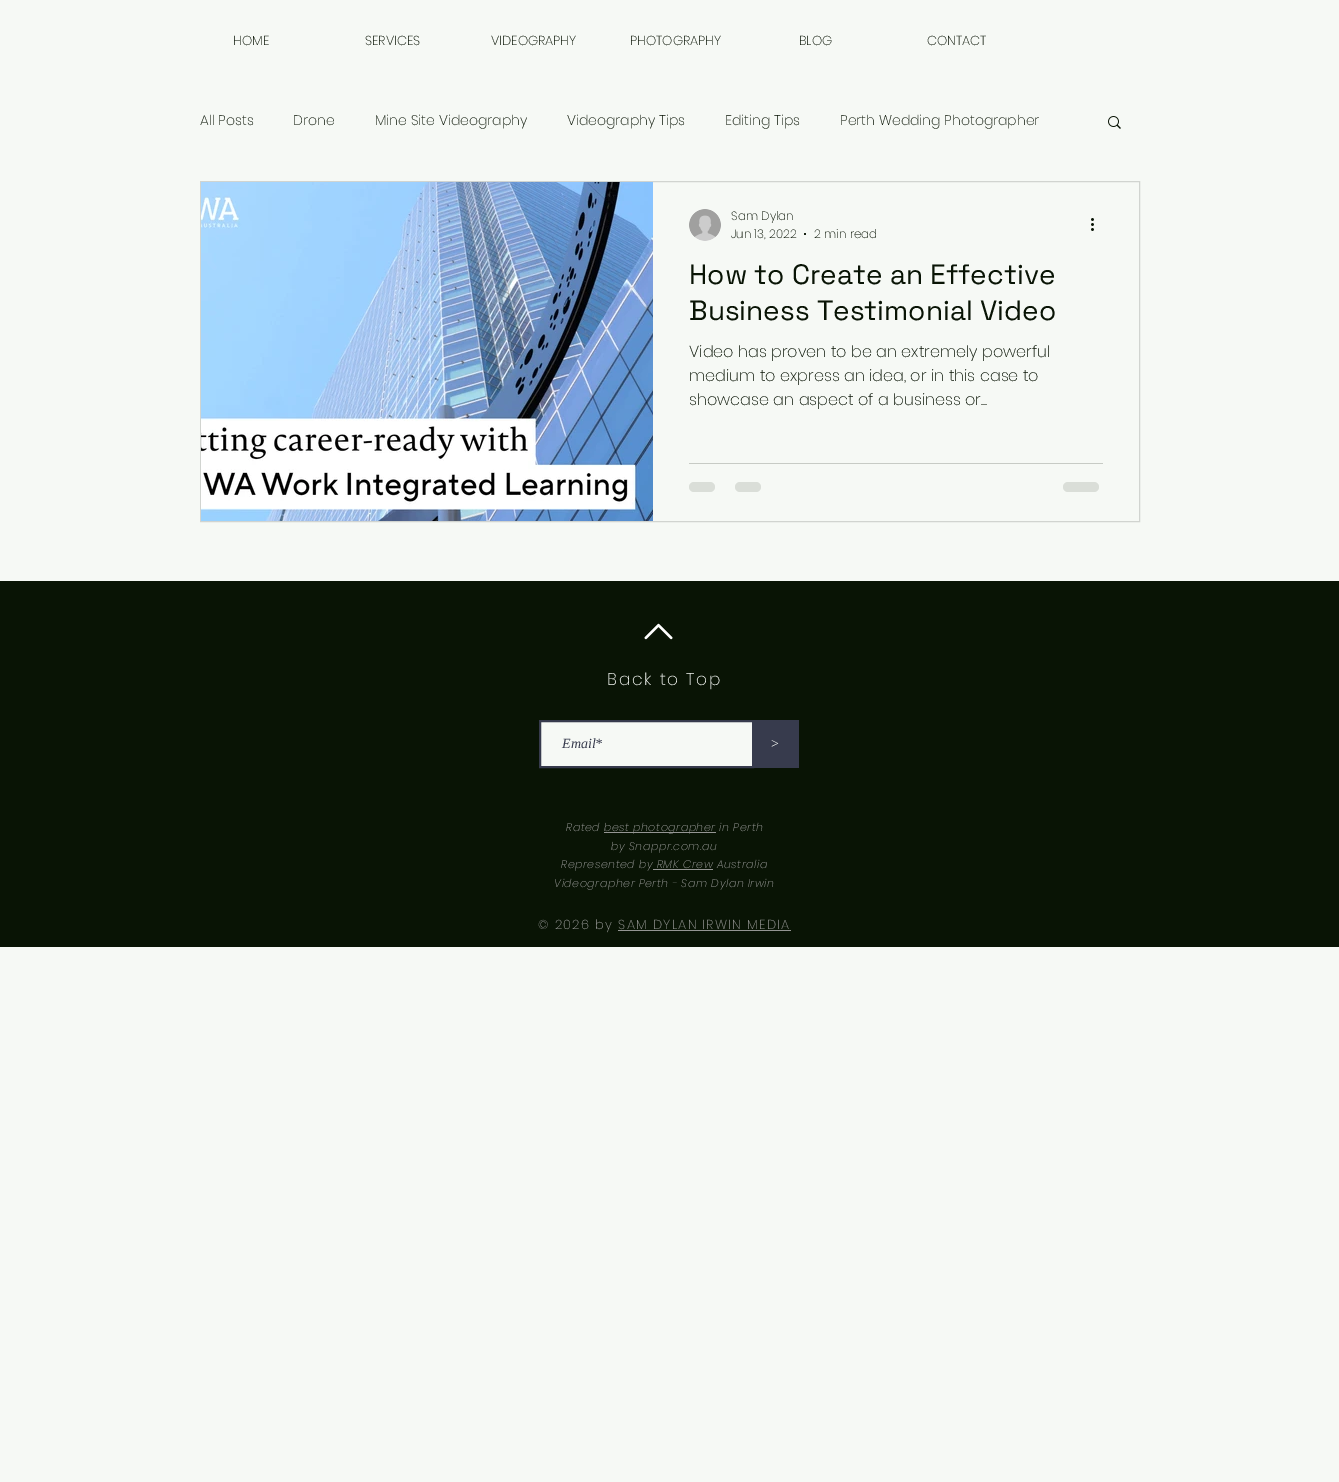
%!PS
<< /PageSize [1339 1482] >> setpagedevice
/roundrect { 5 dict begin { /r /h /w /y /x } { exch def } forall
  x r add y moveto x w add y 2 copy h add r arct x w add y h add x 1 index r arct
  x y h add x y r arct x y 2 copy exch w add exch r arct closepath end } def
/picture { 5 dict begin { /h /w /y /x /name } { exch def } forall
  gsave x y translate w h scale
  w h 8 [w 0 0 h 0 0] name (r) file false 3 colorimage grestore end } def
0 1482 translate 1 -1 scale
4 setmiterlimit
0.965 0.976 0.961 setrgbcolor
0 0 1339 1482 rectfill
/Poppins-ExtraLight [13 0 0 -13 0 0] selectfont
0.035 0.078 0.02 setrgbcolor
233 45 moveto (HOME) show
365 45 moveto (SERVICES) show
491 45 moveto (VIDEOGRAPHY) show
630 45 moveto (PHOTOGRAPHY) show
799 45 moveto (BLOG) show
927 45 moveto (CONTACT) show
/Poppins-ExtraLight [14 0 0 -14 0 0] selectfont
200 125 moveto (All Posts) show
293 125 moveto (Drone) show
375 125 moveto (Mine Site Videography) show
567 125 moveto (Videography Tips) show
725 125 moveto (Editing Tips) show
840 125 moveto (Perth Wedding Photographer) show
(img1.rgb) 1108 116 13 13 picture
0.82 0.831 0.816 setrgbcolor
200.5 181.5 939 340 rectstroke
(img2.rgb) 201 182 452 339 picture
(img3.rgb) 689 209 32 32 picture
/Poppins-ExtraLight [12 0 0 -12 0 0] selectfont
0.035 0.078 0.02 setrgbcolor
731 220 moveto (Sam Dylan) show
731 238 moveto (Jun 13, 2022) show
newpath 805 234 1 0 360 arc closepath fill
814 238 moveto (2 min read) show
(img4.rgb) 1091 218 3 13 picture
/SpaceGrotesk-Regular [28 0 0 -28 0 0] selectfont
689 284 moveto (How to Create an Effective) show
689 320 moveto (Business Testimonial Video) show
/Poppins-ExtraLight [16 0 0 -16 0 0] selectfont
689 357 moveto (Video has proven to be an extremely powerful) show
689 381 moveto (medium to express an idea, or in this case to) show
689 405 moveto (showcase an aspect of a business or...) show
0.78 0.796 0.773 setrgbcolor
689 463 414 1 rectfill
0.855 0.871 0.847 setrgbcolor
689 482 26 10 5 roundrect fill
735 482 26 10 5 roundrect fill
1063 482 36 10 5 roundrect fill
0.035 0.078 0.02 setrgbcolor
0 581 1339 366 rectfill
(img5.rgb) 644 623 29 17 picture
/Poppins-ExtraLight [17 0 0 -17 0 0] selectfont
0.965 0.976 0.961 setrgbcolor
607 685 moveto 1.75 0 (Back to Top) ashow
newpath 540 721 moveto 753 721 lineto 753 767 lineto 540 767 lineto closepath gsave fill grestore
0.216 0.231 0.302 setrgbcolor
2 setlinewidth
stroke
/LiberationSerif-Italic [14 0 0 -14 0 0] selectfont
562 748 moveto (Email*) show
754 720 45 48 rectfill
/LiberationSerif-Regular [14 0 0 -14 0 0] selectfont
0.965 0.976 0.961 setrgbcolor
771 748 moveto (>) show
/Poppins-ExtraLightItalic [11 0 0 -11 0 0] selectfont
0.58 0.584 0.576 setrgbcolor
566 831 moveto 0.55 0 (Rated) ashow
604 832 112 1 rectfill
604 831 moveto 0.55 0 (best photographer in Perth) ashow
611 850 moveto 0.55 0 (by Snappr.com.au) ashow
561 868 moveto 0.55 0 (Represented by RMK Crew Australia) ashow
653 869 60 1 rectfill
554 887 moveto 0.55 0 (Videographer Perth - Sam Dylan Irwin) ashow
/Poppins-ExtraLight [13 0 0 -13 0 0] selectfont
538 929 moveto 1.3 0 (© 2026 by SAM DYLAN IRWIN MEDIA) ashow
618 930 173 1 rectfill
showpage
